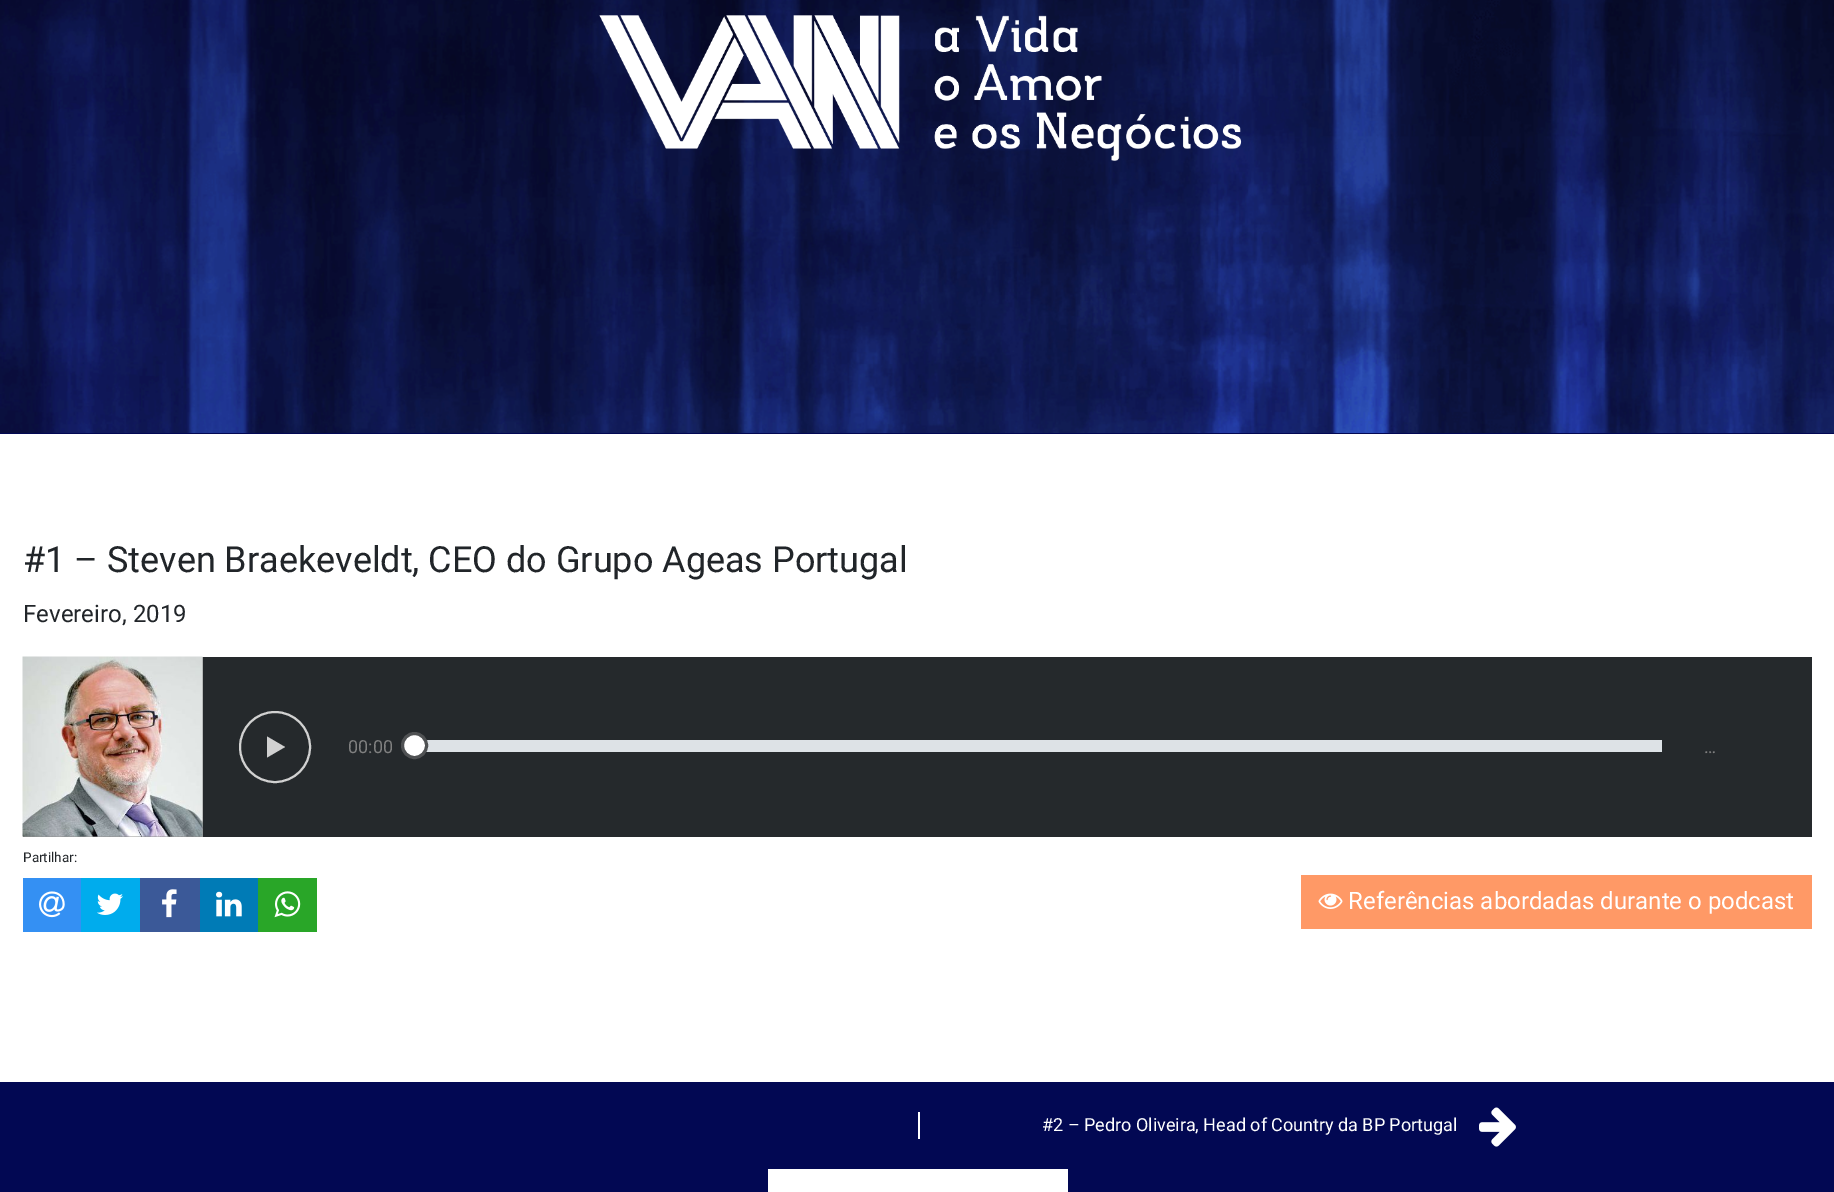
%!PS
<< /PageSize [1834 1192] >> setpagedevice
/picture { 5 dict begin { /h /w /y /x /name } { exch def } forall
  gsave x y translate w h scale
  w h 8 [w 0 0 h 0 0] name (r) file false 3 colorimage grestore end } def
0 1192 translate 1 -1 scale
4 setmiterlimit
1 setgray
0 0 1834 1192 rectfill
(img2.rgb) 0 0 1834 433 picture
(img1.rgb) 599 15 643 146 picture
0.008 0.031 0.325 setrgbcolor
0 433 1834 1 rectfill
/Roboto-Regular [36 0 0 -36 0 0] selectfont
0.129 0.145 0.161 setrgbcolor
23 572 moveto (#1 – Steven Braekeveldt, CEO do Grupo Ageas Portugal) show
/Roboto-Regular [24 0 0 -24 0 0] selectfont
23 622 moveto (Fevereiro, 2019) show
0.565 setgray
23 657 180 180 rectfill
(img3.rgb) 22 656 181 181 picture
0.145 0.161 0.173 setrgbcolor
203 657 1609 180 rectfill
0.82 setgray
2 setlinewidth
newpath 275 747 35 0 360 arc closepath stroke
newpath 267 757.5 moveto 267 736.5 lineto 285 747 lineto closepath fill
/Roboto-Regular [18 0 0 -18 0 0] selectfont
0.502 setgray
348 753 moveto (00:00) show
0.867 0.886 0.902 setrgbcolor
426 740 1236 12 rectfill
1 setgray
newpath 414.5 745.5 12 0 360 arc closepath gsave fill grestore
0.31 0.318 0.325 setrgbcolor
3 setlinewidth
stroke
0.502 setgray
1704 753 moveto (…) show
/Roboto-Regular [13.5 0 0 -13.5 0 0] selectfont
0.129 0.145 0.161 setrgbcolor
23 862 moveto (Partilhar:) show
0.204 0.565 0.953 setrgbcolor
23 878 58 54 rectfill
(img4.rgb) 39 891 26 27 picture
0 0.675 0.929 setrgbcolor
81 878 59 54 rectfill
(img5.rgb) 97 893 26 22 picture
0.231 0.349 0.596 setrgbcolor
140 878 60 54 rectfill
(img6.rgb) 162 889 15 29 picture
0 0.482 0.714 setrgbcolor
200 878 58 54 rectfill
(img7.rgb) 216 891 26 26 picture
0.161 0.651 0.157 setrgbcolor
258 878 59 54 rectfill
(img8.rgb) 274 891 27 27 picture
1 0.6 0.4 setrgbcolor
1301 875 511 54 rectfill
(img9.rgb) 1318 893 25 16 picture
/Roboto-Regular [24 0 0 -24 0 0] selectfont
1 setgray
1348 909 moveto (Referências abordadas durante o podcast) show
0.008 0.031 0.325 setrgbcolor
0 1082 1834 110 rectfill
1 setgray
918 1112 2 27 rectfill
/Roboto-Regular [18 0 0 -18 0 0] selectfont
1042 1131 moveto (#2 – Pedro Oliveira, Head of Country da BP Portugal) show
(img10.rgb) 1479 1107 37 40 picture
768 1169 300 23 rectfill
showpage
